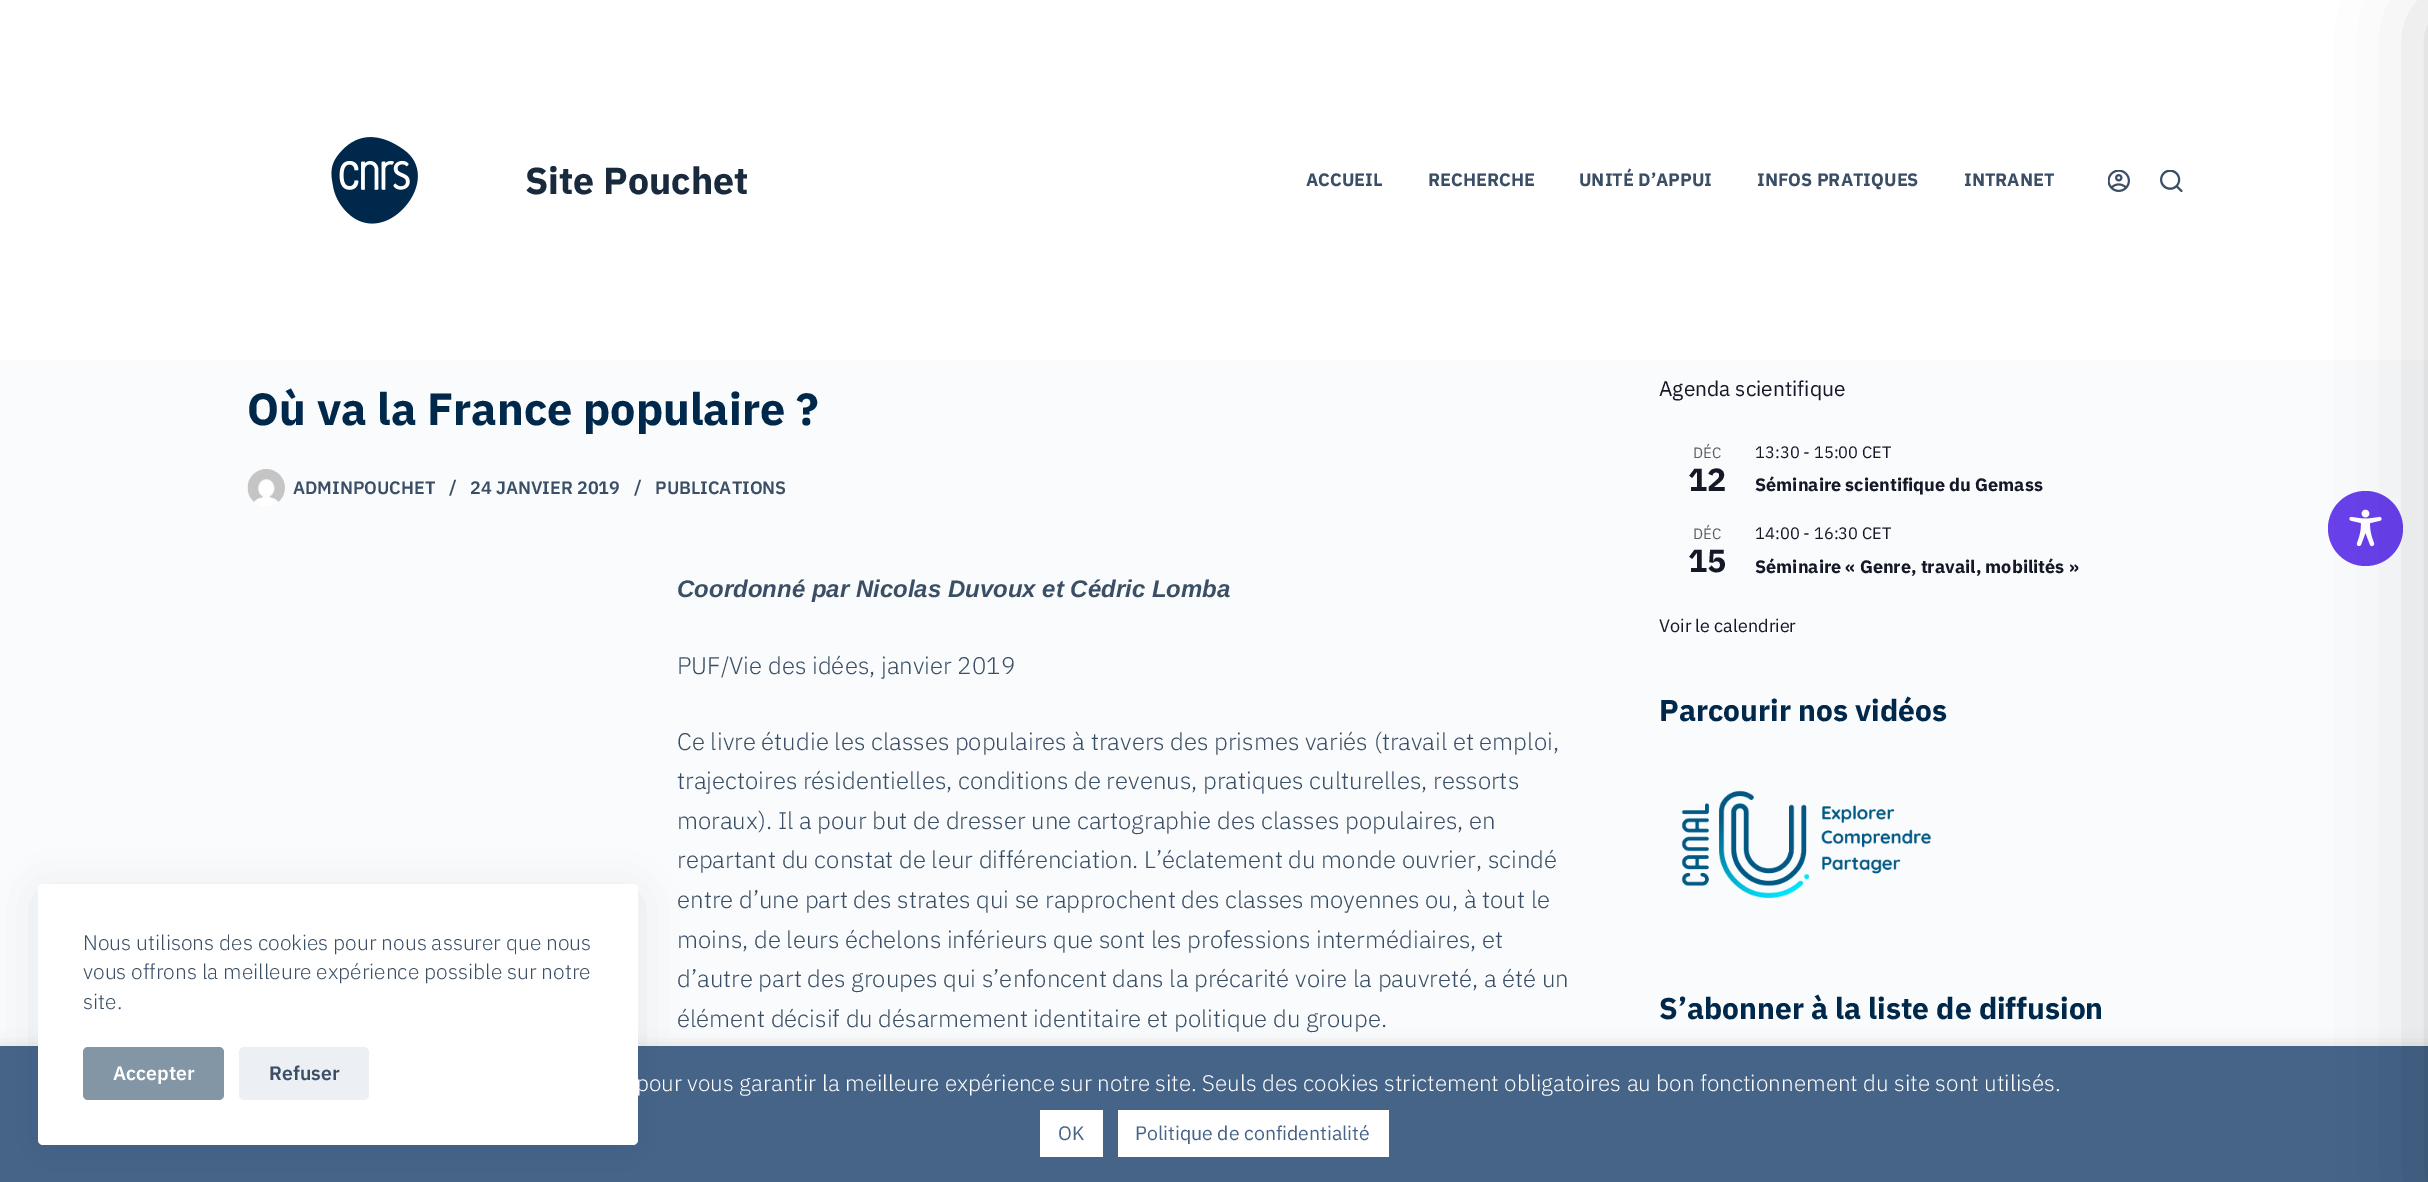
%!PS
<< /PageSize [2428 1182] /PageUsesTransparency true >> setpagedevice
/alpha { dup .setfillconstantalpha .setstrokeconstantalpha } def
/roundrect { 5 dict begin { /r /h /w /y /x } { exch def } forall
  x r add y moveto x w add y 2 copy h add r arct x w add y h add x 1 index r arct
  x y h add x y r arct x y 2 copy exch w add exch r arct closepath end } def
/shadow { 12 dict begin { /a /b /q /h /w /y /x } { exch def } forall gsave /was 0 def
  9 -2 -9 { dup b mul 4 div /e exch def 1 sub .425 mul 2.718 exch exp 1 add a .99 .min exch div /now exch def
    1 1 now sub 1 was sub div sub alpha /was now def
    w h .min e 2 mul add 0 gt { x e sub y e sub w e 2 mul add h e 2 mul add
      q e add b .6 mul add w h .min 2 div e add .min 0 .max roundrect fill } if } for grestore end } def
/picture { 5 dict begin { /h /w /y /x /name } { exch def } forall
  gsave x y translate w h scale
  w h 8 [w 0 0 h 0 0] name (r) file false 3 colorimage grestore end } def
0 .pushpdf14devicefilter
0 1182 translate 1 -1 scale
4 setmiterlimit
0.98 0.984 0.988 setrgbcolor
0 0 2428 1182 rectfill
1 setgray
0 0 2428 360 rectfill
(img1.rgb) 331 137 87 87 picture
/IBMPlexSans-Bold [37.5 0 0 -37.5 0 0] selectfont
0.098 0.165 0.239 setrgbcolor
525 194 moveto (Site Pouchet) show
/IBMPlexSans-Bold [18 0 0 -18 0 0] selectfont
0.227 0.31 0.4 setrgbcolor
1306 186 moveto (ACCUEIL) show
1428 186 moveto (RECHERCHE) show
1579 186 moveto (UNITÉ D’APPUI) show
1757 186 moveto (INFOS PRATIQUES) show
1964 186 moveto (INTRANET) show
(img2.rgb) 2108 170 22 22 picture
(img3.rgb) 2160 170 23 22 picture
/IBMPlexSans-Bold [45 0 0 -45 0 0] selectfont
0 0.157 0.294 setrgbcolor
247 425 moveto (Où va la France populaire ?) show
(img4.rgb) 247 469 38 37 picture
/IBMPlexSans-SemiBold [18 0 0 -18 0 0] selectfont
0.227 0.31 0.4 setrgbcolor
293 494 moveto (ADMINPOUCHET) show
449 493 moveto (/) show
470 494 moveto (24 JANVIER 2019) show
634 493 moveto (/) show
655 494 moveto (PUBLICATIONS) show
/LiberationSans-BoldItalic [24 0 0 -24 0 0] selectfont
677 597 moveto (Coordonné par Nicolas Duvoux et Cédric Lomba) show
/IBMPlexSans-Light [24 0 0 -24 0 0] selectfont
677 674 moveto (PUF/Vie des idées, janvier 2019) show
677 750 moveto (Ce livre étudie les classes populaires à travers des prismes variés \(travail et emploi,) show
677 789 moveto (trajectoires résidentielles, conditions de revenus, pratiques culturelles, ressorts) show
677 829 moveto (moraux\). Il a pour but de dresser une cartographie des classes populaires, en) show
677 868 moveto (repartant du constat de leur différenciation. L’éclatement du monde ouvrier, scindé) show
677 908 moveto (entre d’une part des strates qui se rapprochent des classes moyennes ou, à tout le) show
677 948 moveto (moins, de leurs échelons inférieurs que sont les professions intermédiaires, et) show
677 987 moveto (d’autre part des groupes qui s’enfoncent dans la précarité voire la pauvreté, a été un) show
677 1027 moveto (élément décisif du désarmement identitaire et politique du groupe.) show
/IBMPlexSans-Regular [21 0 0 -21 0 0] selectfont
0.078 0.094 0.153 setrgbcolor
1659 396 moveto (Agenda scientifique) show
/IBMPlexSans-Regular [15 0 0 -15 0 0] selectfont
0.365 setgray
1693 458 moveto (DÉC) show
/IBMPlexSans-Bold [32 0 0 -32 0 0] selectfont
0.078 0.094 0.153 setrgbcolor
1688 491 moveto (12) show
/IBMPlexSans-Regular [16.5 0 0 -16.5 0 0] selectfont
1755 458 moveto (13:30 - 15:00 CET) show
/IBMPlexSans-Bold [18 0 0 -18 0 0] selectfont
1755 491 moveto (Séminaire scientifique du Gemass) show
/IBMPlexSans-Regular [15 0 0 -15 0 0] selectfont
0.365 setgray
1693 539 moveto (DÉC) show
/IBMPlexSans-Bold [32 0 0 -32 0 0] selectfont
0.078 0.094 0.153 setrgbcolor
1688 572 moveto (15) show
/IBMPlexSans-Regular [16.5 0 0 -16.5 0 0] selectfont
1755 539 moveto (14:00 - 16:30 CET) show
/IBMPlexSans-Bold [18 0 0 -18 0 0] selectfont
1755 573 moveto (Séminaire « Genre, travail, mobilités ») show
/IBMPlexSans-Regular [18 0 0 -18 0 0] selectfont
1659 632 moveto (Voir le calendrier) show
/IBMPlexSans-Bold [30 0 0 -30 0 0] selectfont
0 0.157 0.294 setrgbcolor
1659 721 moveto (Parcourir nos vidéos) show
(img5.rgb) 1681 790 251 109 picture
1659 1019 moveto (S’abonner à la liste de diffusion) show
0.412 0.255 0.922 setrgbcolor
newpath 2365.5 528.5 37.5 0 360 arc closepath fill
(img6.rgb) 2349 509 33 38 picture
0.675 0.671 0.671 setrgbcolor
0 1044 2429 137 0 7.5 0.3 shadow
0.271 0.392 0.529 setrgbcolor
0 1046 2428 136 rectfill
0 setgray
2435 15 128 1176 0 45 0.2 shadow
0.133 0.22 0.396 setrgbcolor
45 899 585 246 0 22.5 0.15 shadow
1 setgray
38 884 600 261 5 roundrect fill
/IBMPlexSans-Light [21 0 0 -21 0 0] selectfont
0.227 0.31 0.4 setrgbcolor
83 950 moveto (Nous utilisons des cookies pour nous assurer que nous) show
83 979 moveto (vous offrons la meilleure expérience possible sur notre) show
83 1009 moveto (site.) show
0.51 0.588 0.647 setrgbcolor
83 1047 141 53 5 roundrect fill
/IBMPlexSans-SemiBold [19.5 0 0 -19.5 0 0] selectfont
1 setgray
113 1080 moveto (Accepter) show
0.925 0.937 0.953 setrgbcolor
239 1047 130 53 5 roundrect fill
0.227 0.31 0.4 setrgbcolor
269 1080 moveto (Refuser) show
/IBMPlexSans-Light [22.5 0 0 -22.5 0 0] selectfont
1 setgray
636 1091 moveto (pour vous garantir la meilleure expérience sur notre site. Seuls des cookies strictement obligatoires au bon fonctionnement du site sont utilisés.) show
1040 1110 63 47 rectfill
/IBMPlexSans-Regular [19.5 0 0 -19.5 0 0] selectfont
0.271 0.392 0.529 setrgbcolor
1058 1140 moveto (OK) show
1 setgray
1118 1110 271 47 rectfill
0.271 0.392 0.529 setrgbcolor
1135 1140 moveto (Politique de confidentialité) show
.poppdf14devicefilter showpage
